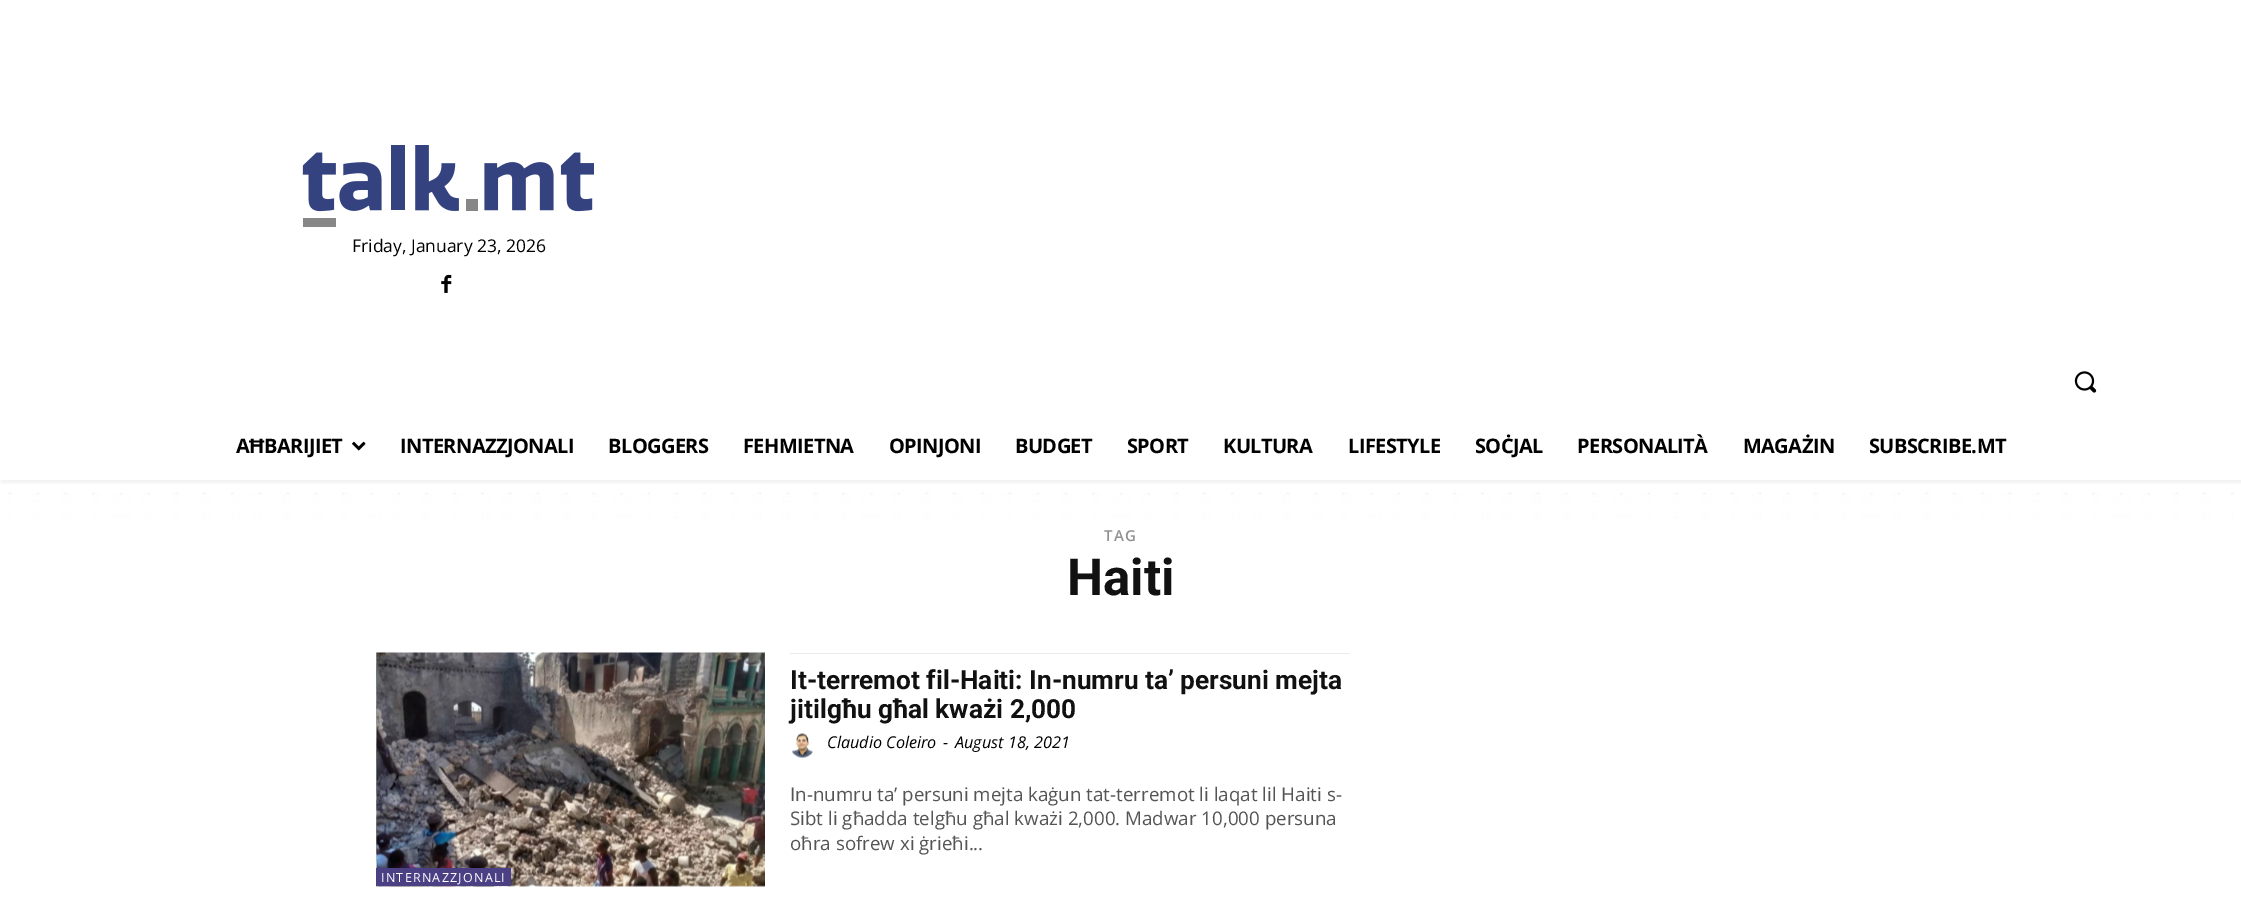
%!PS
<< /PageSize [2241 912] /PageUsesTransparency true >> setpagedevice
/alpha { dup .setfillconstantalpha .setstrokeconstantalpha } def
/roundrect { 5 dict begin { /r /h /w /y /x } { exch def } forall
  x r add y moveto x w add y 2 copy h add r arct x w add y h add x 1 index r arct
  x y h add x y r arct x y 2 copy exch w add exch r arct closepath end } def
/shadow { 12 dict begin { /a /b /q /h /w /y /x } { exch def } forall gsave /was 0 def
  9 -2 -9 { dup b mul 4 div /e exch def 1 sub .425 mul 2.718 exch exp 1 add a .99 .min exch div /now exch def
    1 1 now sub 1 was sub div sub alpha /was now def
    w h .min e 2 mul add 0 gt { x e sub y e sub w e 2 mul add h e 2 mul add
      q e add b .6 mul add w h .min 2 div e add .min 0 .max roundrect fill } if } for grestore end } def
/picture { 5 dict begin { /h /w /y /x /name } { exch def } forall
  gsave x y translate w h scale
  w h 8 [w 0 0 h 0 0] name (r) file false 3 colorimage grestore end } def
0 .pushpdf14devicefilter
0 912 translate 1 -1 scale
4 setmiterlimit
1 setgray
0 0 2241 912 rectfill
(img1.rgb) 302 145 292 82 picture
/OpenSans-Regular [17.5 0 0 -17.5 0 0] selectfont
0 setgray
352 252 moveto (Friday, January 23, 2026) show
(img2.rgb) 441 274 11 19 picture
(img3.rgb) 2074 371 23 22 picture
gsave
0 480 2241 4 rectclip
1 414 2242 69 0 2.5 0.06 shadow
grestore
/OpenSans-Bold [20 0 0 -20 0 0] selectfont
236 453 moveto -0.6 0 (AĦBARIJIET) ashow
(img4.rgb) 352 441 14 10 picture
400 453 moveto -0.6 0 (INTERNAZZJONALI) ashow
608 453 moveto -0.6 0 (BLOGGERS) ashow
743 453 moveto -0.6 0 (FEHMIETNA) ashow
889 453 moveto -0.6 0 (OPINJONI) ashow
1015 453 moveto -0.6 0 (BUDGET) ashow
1127 453 moveto -0.6 0 (SPORT) ashow
1223 453 moveto -0.6 0 (KULTURA) ashow
1348 453 moveto -0.6 0 (LIFESTYLE) ashow
1475 453 moveto -0.6 0 (SOĊJAL) ashow
1577 453 moveto -0.6 0 (PERSONALITÀ) ashow
1743 453 moveto -0.6 0 (MAGAŻIN) ashow
1869 453 moveto -0.6 0 (SUBSCRIBE.MT) ashow
(img5.rgb) 8 492 2226 27 picture
/OpenSans-SemiBold [15 0 0 -15 0 0] selectfont
0.569 setgray
1104 541 moveto 1.25 0 (TAG) ashow
/Roboto-Bold [51 0 0 -51 0 0] selectfont
0.067 setgray
1067 595 moveto (Haiti) show
0.918 setgray
790 653 559 1 rectfill
/Roboto-Bold [26.25 0 0 -26.25 0 0] selectfont
0.067 setgray
790 689 moveto (It-terremot fil-Haiti: In-numru ta’ persuni mejta) show
790 718 moveto (jitilgħu għal kważi 2,000) show
(img6.rgb) 791 733 22 25 picture
/OpenSans-Italic [16.25 0 0 -16.25 0 0] selectfont
0 setgray
827 748 moveto (Claudio Coleiro) show
943 748 moveto (-) show
955 748 moveto (August 18, 2021) show
/OpenSans-Regular [18.75 0 0 -18.75 0 0] selectfont
0.333 setgray
790 801 moveto (In-numru ta’ persuni mejta kaġun tat-terremot li laqat lil Haiti s-) show
790 825 moveto (Sibt li għadda telgħu għal kważi 2,000. Madwar 10,000 persuna) show
790 850 moveto (oħra sofrew xi ġrieħi...) show
(img7.rgb) 376 652 389 235 picture
0.298 0.251 0.518 setrgbcolor
376 868 135 18 rectfill
/OpenSans-Regular [12.5 0 0 -12.5 0 0] selectfont
1 setgray
381 882 moveto 1.25 0 (INTERNAZZJONALI) ashow
.poppdf14devicefilter showpage
